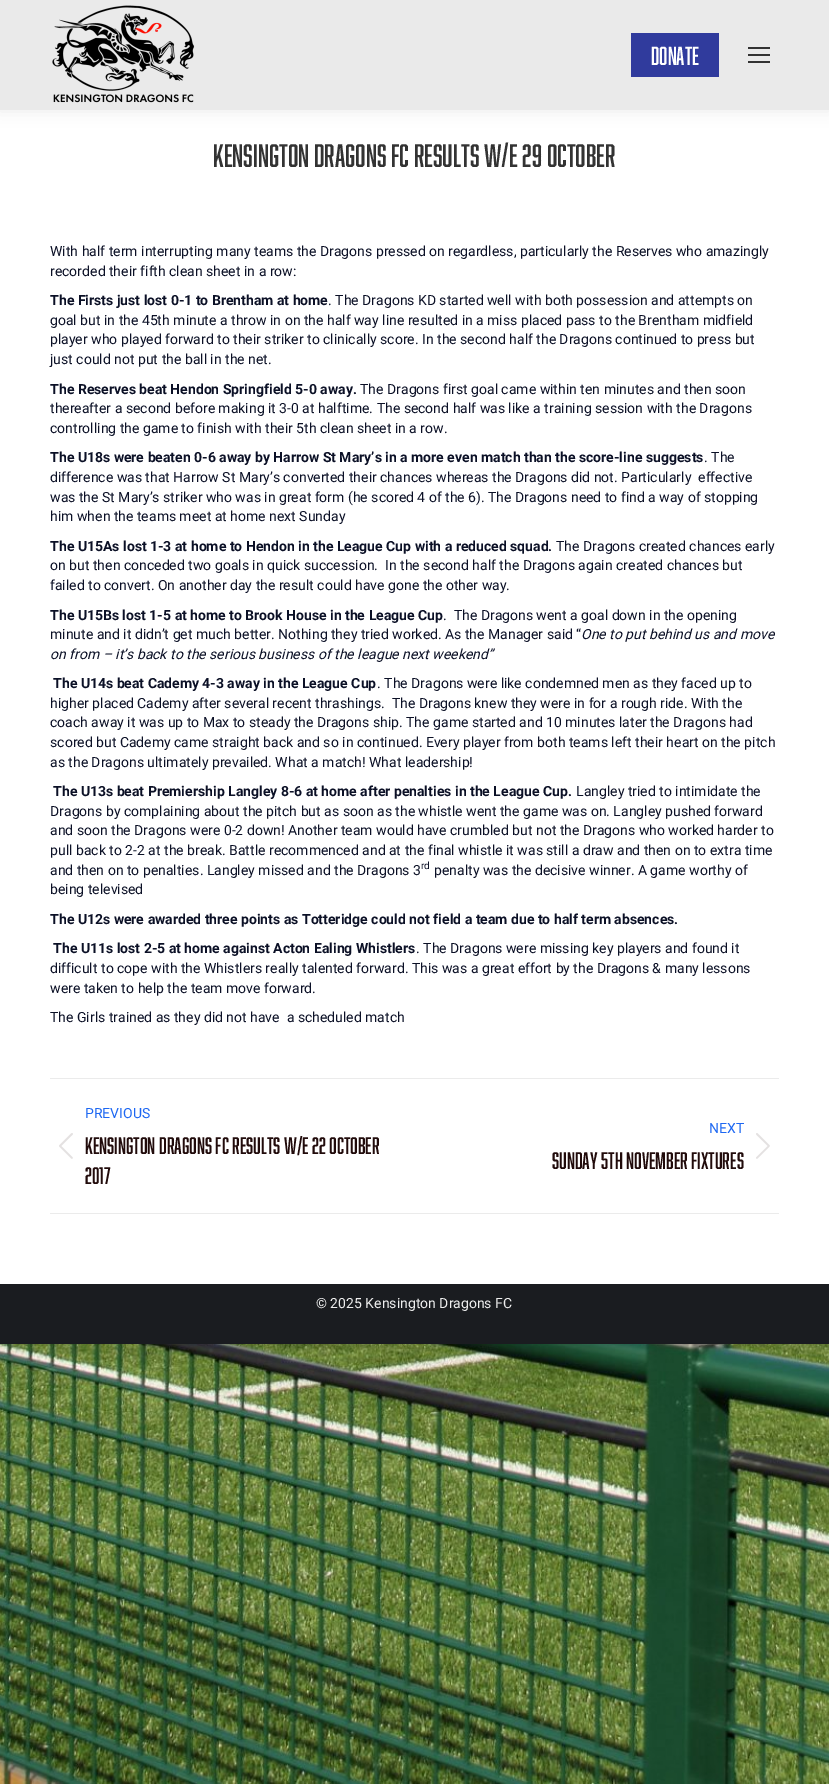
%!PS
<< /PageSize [829 1784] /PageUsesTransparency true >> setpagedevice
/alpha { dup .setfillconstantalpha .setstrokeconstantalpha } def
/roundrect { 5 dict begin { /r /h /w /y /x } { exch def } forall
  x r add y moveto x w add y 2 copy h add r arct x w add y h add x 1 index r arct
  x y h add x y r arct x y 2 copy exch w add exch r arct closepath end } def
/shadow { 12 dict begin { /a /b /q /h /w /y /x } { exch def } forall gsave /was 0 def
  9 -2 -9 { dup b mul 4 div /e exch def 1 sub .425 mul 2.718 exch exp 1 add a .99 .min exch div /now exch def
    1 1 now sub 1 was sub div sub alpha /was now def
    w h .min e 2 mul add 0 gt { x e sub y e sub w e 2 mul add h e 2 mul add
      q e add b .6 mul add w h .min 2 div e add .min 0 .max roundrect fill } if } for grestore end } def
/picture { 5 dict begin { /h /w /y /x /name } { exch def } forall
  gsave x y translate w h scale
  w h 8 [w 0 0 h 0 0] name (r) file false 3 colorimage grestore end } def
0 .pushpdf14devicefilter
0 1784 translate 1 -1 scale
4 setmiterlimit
1 setgray
0 0 829 1784 rectfill
(img1.rgb) 0 1344 829 440 picture
0 setgray
0 0 829 1344 0 6 0.15 shadow
1 setgray
0 110 829 1174 rectfill
0 setgray
-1 -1 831 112 0 7.5 0.07 shadow
0.918 setgray
0 0 829 110 rectfill
(img2.rgb) 52 5 143 98 picture
0.188 0.231 0.616 setrgbcolor
631 33 88 44 rectfill
/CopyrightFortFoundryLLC-Regular [24 0 0 -24 0 0] selectfont
1 setgray
651 65 moveto (DONATE) show
0.2 setgray
748 47 22 2 rectfill
748 54 22 2 rectfill
748 61 22 2 rectfill
gsave
213 135 403 32 rectclip
/CopyrightFortFoundryLLC-Regular [30 0 0 -30 0 0] selectfont
213 167 moveto (Kensington Dragons FC Results W/E 29 October) show
grestore
/Roboto-Regular [14 0 0 -14 0 0] selectfont
0.043 0.063 0.149 setrgbcolor
50 256 moveto (With half term interrupting many teams the Dragons pressed on regardless, particularly the Reserves who amazingly) show
50 276 moveto (recorded their fifth clean sheet in a row:) show
/Roboto-Bold [14 0 0 -14 0 0] selectfont
50 305 moveto (The Firsts just lost 0-1 to Brentham at home) show
/Roboto-Regular [14 0 0 -14 0 0] selectfont
328 305 moveto (. The Dragons KD started well with both possession and attempts on) show
50 325 moveto (goal but in the 45th minute a throw in on the half way line resulted in a miss placed pass to the Brentham midfield) show
50 344 moveto (player who played forward to their striker to clinically score. In the second half the Dragons continued to press but) show
50 364 moveto (just could not put the ball in the net.) show
/Roboto-Bold [14 0 0 -14 0 0] selectfont
50 394 moveto (The Reserves beat Hendon Springfield 5-0 away.) show
/Roboto-Regular [14 0 0 -14 0 0] selectfont
360 394 moveto (The Dragons first goal came within ten minutes and then soon) show
50 413 moveto (thereafter a second before making it 3-0 at halftime. The second half was like a training session with the Dragons) show
50 433 moveto (controlling the game to finish with their 5th clean sheet in a row.) show
/Roboto-Bold [14 0 0 -14 0 0] selectfont
50 462 moveto (The U18s were beaten 0-6 away by Harrow St Mary’s in a more even match than the score-line suggests) show
/Roboto-Regular [14 0 0 -14 0 0] selectfont
704 462 moveto (. The) show
50 482 moveto (difference was that Harrow St Mary’s converted their chances whereas the Dragons did not. Particularly  effective) show
50 502 moveto (was the St Mary’s striker who was in great form \(he scored 4 of the 6\). The Dragons need to find a way of stopping) show
50 521 moveto (him when the teams meet at home next Sunday) show
/Roboto-Bold [14 0 0 -14 0 0] selectfont
50 551 moveto (The U15As lost 1-3 at home to Hendon in the League Cup with a reduced squad.) show
/Roboto-Regular [14 0 0 -14 0 0] selectfont
556 551 moveto (The Dragons created chances early) show
50 570 moveto (on but then conceded two goals in quick succession.  In the second half the Dragons again created chances but) show
50 590 moveto (failed to convert. On another day the result could have gone the other way.) show
/Roboto-Bold [14 0 0 -14 0 0] selectfont
50 620 moveto (The U15Bs lost 1-5 at home to Brook House in the League Cup) show
/Roboto-Regular [14 0 0 -14 0 0] selectfont
443 620 moveto (.  The Dragons went a goal down in the opening) show
50 639 moveto (minute and it didn’t get much better. Nothing they tried worked. As the Manager said “) show
/Roboto-Italic [14 0 0 -14 0 0] selectfont
581 639 moveto (One to put behind us and move) show
50 659 moveto (on from – it’s back to the serious business of the league next weekend”) show
/Roboto-Bold [14 0 0 -14 0 0] selectfont
53 688 moveto (The U14s beat Cademy 4-3 away in the League Cup) show
/Roboto-Regular [14 0 0 -14 0 0] selectfont
377 688 moveto (. The Dragons were like condemned men as they faced up to) show
50 708 moveto (higher placed Cademy after several recent thrashings.  The Dragons knew they were in for a rough ride. With the) show
50 727 moveto (coach away it was up to Max to steady the Dragons ship. The game started and 10 minutes later the Dragons had) show
50 747 moveto (scored but Cademy came straight back and so in continued. Every player from both teams left their heart on the pitch) show
50 767 moveto (as the Dragons ultimately prevailed. What a match! What leadership!) show
/Roboto-Bold [14 0 0 -14 0 0] selectfont
53 796 moveto (The U13s beat Premiership Langley 8-6 at home after penalties in the League Cup.) show
/Roboto-Regular [14 0 0 -14 0 0] selectfont
576 796 moveto (Langley tried to intimidate the) show
50 816 moveto (Dragons by complaining about the pitch but as soon as the whistle went the game was on. Langley pushed forward) show
50 835 moveto (and soon the Dragons were 0-2 down! Another team would have crumbled but not the Dragons who worked harder to) show
50 855 moveto (pull back to 2-2 at the break. Battle recommenced and at the final whistle it was still a draw and then on to extra time) show
50 875 moveto (and then on to penalties. Langley missed and the Dragons 3) show
/Roboto-Regular [10 0 0 -10 0 0] selectfont
421 869 moveto (rd) show
/Roboto-Regular [14 0 0 -14 0 0] selectfont
434 875 moveto (penalty was the decisive winner. A game worthy of) show
50 894 moveto (being televised) show
/Roboto-Bold [14 0 0 -14 0 0] selectfont
50 924 moveto (The U12s were awarded three points as Totteridge could not field a team due to half term absences.) show
53 953 moveto (The U11s lost 2-5 at home against Acton Ealing Whistlers) show
/Roboto-Regular [14 0 0 -14 0 0] selectfont
416 953 moveto (. The Dragons were missing key players and found it) show
50 973 moveto (difficult to cope with the Whistlers really talented forward. This was a great effort by the Dragons & many lessons) show
50 993 moveto (were taken to help the team move forward.) show
50 1022 moveto (The Girls trained as they did not have  a scheduled match) show
0.922 setgray
50 1078 729 1 rectfill
50 1213 729 1 rectfill
0.114 0.404 0.949 setrgbcolor
85 1118 moveto (PREVIOUS) show
(img3.rgb) 59 1133 14 26 picture
/CopyrightFortFoundryLLC-Regular [22 0 0 -22 0 0] selectfont
0.129 0.043 0.043 setrgbcolor
85 1154 moveto (Kensington Dragons FC Results W/E 22 October) show
85 1184 moveto (2017) show
/Roboto-Regular [14 0 0 -14 0 0] selectfont
0.114 0.404 0.949 setrgbcolor
709 1133 moveto (NEXT) show
/CopyrightFortFoundryLLC-Regular [22 0 0 -22 0 0] selectfont
0.129 0.043 0.043 setrgbcolor
552 1169 moveto (Sunday 5th November Fixtures) show
(img4.rgb) 756 1133 14 26 picture
0.102 0.11 0.125 setrgbcolor
0 1284 829 60 rectfill
/Roboto-Regular [14 0 0 -14 0 0] selectfont
0.933 setgray
316 1308 moveto (© 2025 Kensington Dragons FC) show
.poppdf14devicefilter showpage
